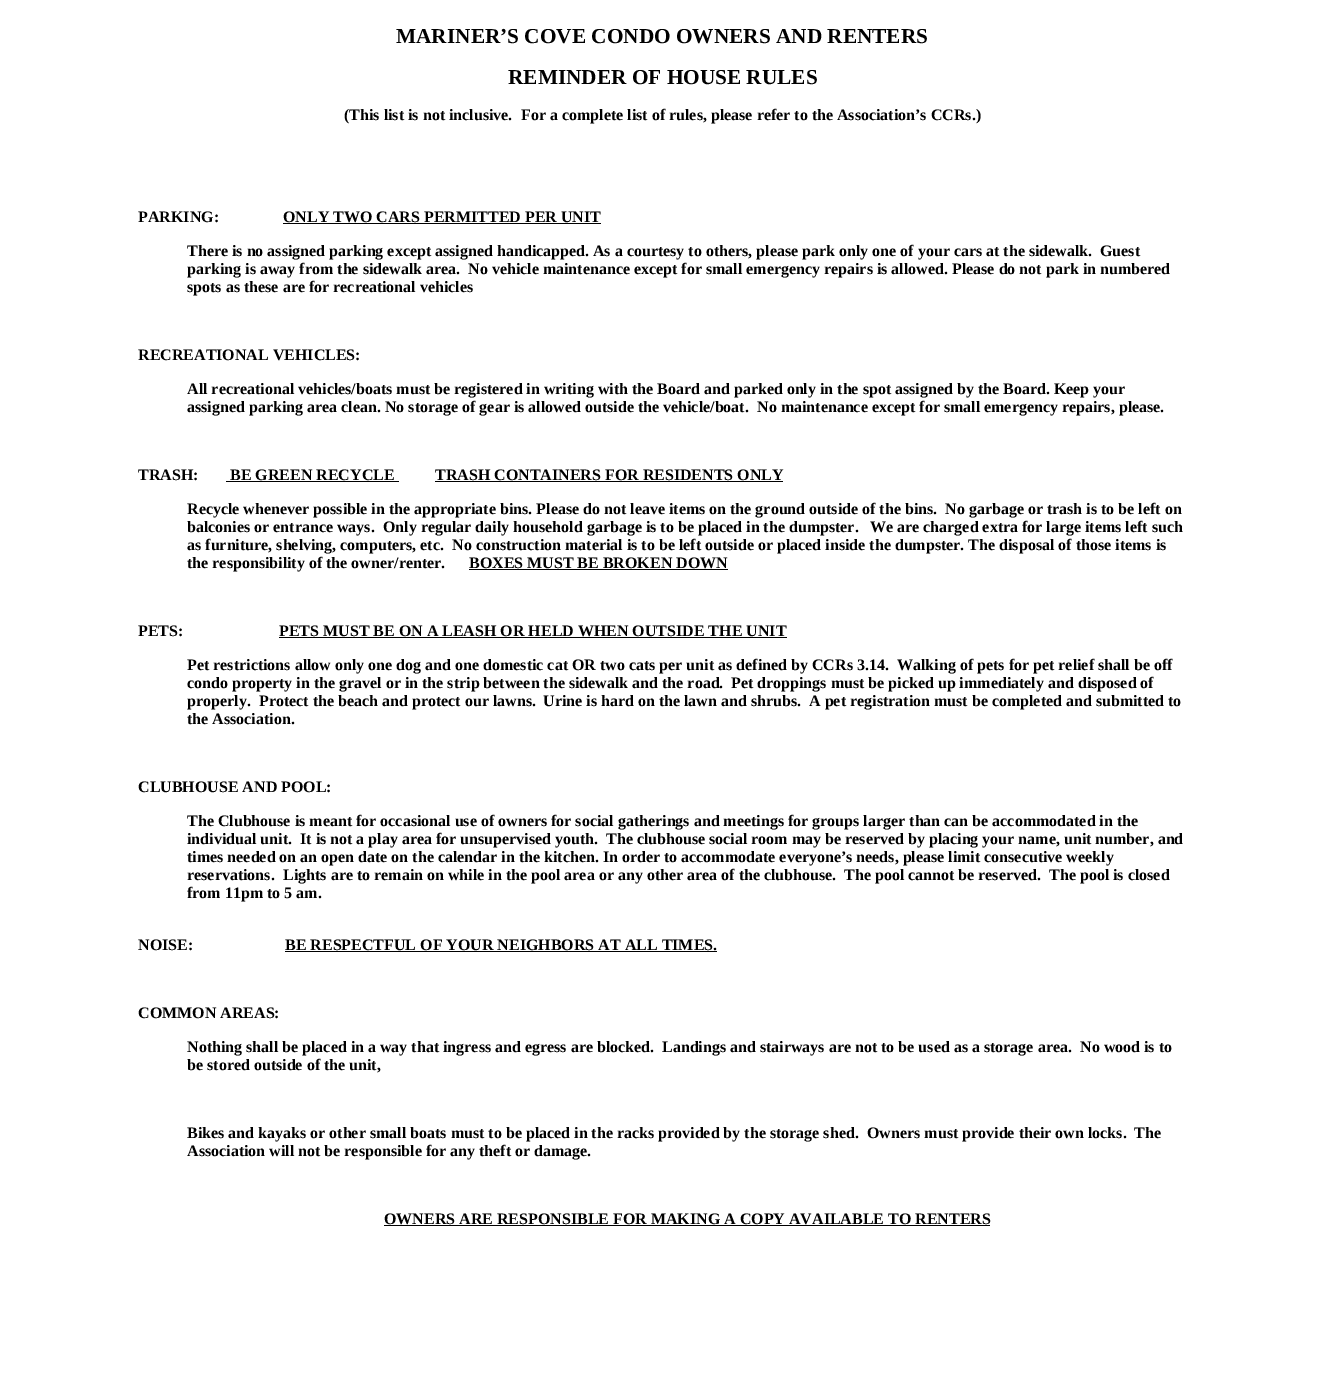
%!PS
<< /PageSize [1326 1399] >> setpagedevice
0 1399 translate 1 -1 scale
4 setmiterlimit
1 setgray
0 0 1326 1399 rectfill
/LiberationSerif-Bold [21.3 0 0 -21.3 0 0] selectfont
0 setgray
396 43 moveto (MARINER’S COVE CONDO OWNERS AND RENTERS) show
508 84 moveto (REMINDER OF HOUSE RULES) show
/LiberationSerif-Bold [16 0 0 -16 0 0] selectfont
344 120 moveto (\(This list is not inclusive.) show
521 120 moveto (For a complete list of rules, please refer to the Association’s CCRs.\)) show
138 222 moveto (PARKING:) show
283 222 moveto (ONLY TWO CARS PERMITTED PER UNIT) show
283 223 318 1 rectfill
187 256 moveto (There is no assigned parking except assigned handicapped. As a courtesy to others, please park only one of your cars at the sidewalk.) show
1100 256 moveto (Guest) show
187 274 moveto (parking is away from the sidewalk area.) show
468 274 moveto (No vehicle maintenance except for small emergency repairs is allowed. Please do not park in numbered) show
187 292 moveto (spots as these are for recreational vehicles) show
138 360 moveto (RECREATIONAL VEHICLES:) show
187 394 moveto (All recreational vehicles/boats must be registered in writing with the Board and parked only in the spot assigned by the Board. Keep your) show
187 412 moveto (assigned parking area clean. No storage of gear is allowed outside the vehicle/boat.) show
757 412 moveto (No maintenance except for small emergency repairs, please.) show
138 480 moveto (TRASH:) show
230 480 moveto (BE GREEN RECYCLE) show
226 481 173 1 rectfill
435 480 moveto (TRASH CONTAINERS FOR RESIDENTS ONLY) show
435 481 348 1 rectfill
187 514 moveto (Recycle whenever possible in the appropriate bins. Please do not leave items on the ground outside of the bins.) show
945 514 moveto (No garbage or trash is to be left on) show
187 532 moveto (balconies or entrance ways.) show
383 532 moveto (Only regular daily household garbage is to be placed in the dumpster.) show
870 532 moveto (We are charged extra for large items left such) show
187 550 moveto (as furniture, shelving, computers, etc.) show
452 550 moveto (No construction material is to be left outside or placed inside the dumpster. The disposal of those items is) show
187 568 moveto (the responsibility of the owner/renter.) show
469 568 moveto (BOXES MUST BE BROKEN DOWN) show
469 569 259 1 rectfill
138 636 moveto (PETS:) show
279 636 moveto (PETS MUST BE ON A LEASH OR HELD WHEN OUTSIDE THE UNIT) show
279 637 508 1 rectfill
187 670 moveto (Pet restrictions allow only one dog and one domestic cat OR two cats per unit as defined by CCRs 3.14.) show
897 670 moveto (Walking of pets for pet relief shall be off) show
187 688 moveto (condo property in the gravel or in the strip between the sidewalk and the road.) show
731 688 moveto (Pet droppings must be picked up immediately and disposed of) show
187 706 moveto (properly.) show
259 706 moveto (Protect the beach and protect our lawns.) show
543 706 moveto (Urine is hard on the lawn and shrubs.) show
809 706 moveto (A pet registration must be completed and submitted to) show
187 724 moveto (the Association.) show
138 792 moveto (CLUBHOUSE AND POOL:) show
187 826 moveto (The Clubhouse is meant for occasional use of owners for social gatherings and meetings for groups larger than can be accommodated in the) show
187 844 moveto (individual unit.) show
300 844 moveto (It is not a play area for unsupervised youth.) show
606 844 moveto (The clubhouse social room may be reserved by placing your name, unit number, and) show
187 862 moveto (times needed on an open date on the calendar in the kitchen. In order to accommodate everyone’s needs, please limit consecutive weekly) show
187 880 moveto (reservations.) show
283 880 moveto (Lights are to remain on while in the pool area or any other area of the clubhouse.) show
844 880 moveto (The pool cannot be reserved.) show
1049 880 moveto (The pool is closed) show
187 898 moveto (from 11pm to 5 am.) show
138 950 moveto (NOISE:) show
285 950 moveto (BE RESPECTFUL OF YOUR NEIGHBORS AT ALL TIMES.) show
285 951 432 1 rectfill
138 1018 moveto (COMMON AREAS:) show
187 1052 moveto (Nothing shall be placed in a way that ingress and egress are blocked.) show
662 1052 moveto (Landings and stairways are not to be used as a storage area.) show
1080 1052 moveto (No wood is to) show
187 1070 moveto (be stored outside of the unit,) show
187 1138 moveto (Bikes and kayaks or other small boats must to be placed in the racks provided by the storage shed.) show
867 1138 moveto (Owners must provide their own locks.) show
1134 1138 moveto (The) show
187 1156 moveto (Association will not be responsible for any theft or damage.) show
384 1224 moveto (OWNERS ARE RESPONSIBLE FOR MAKING A COPY AVAILABLE TO RENTERS) show
384 1225 606 1 rectfill
showpage
